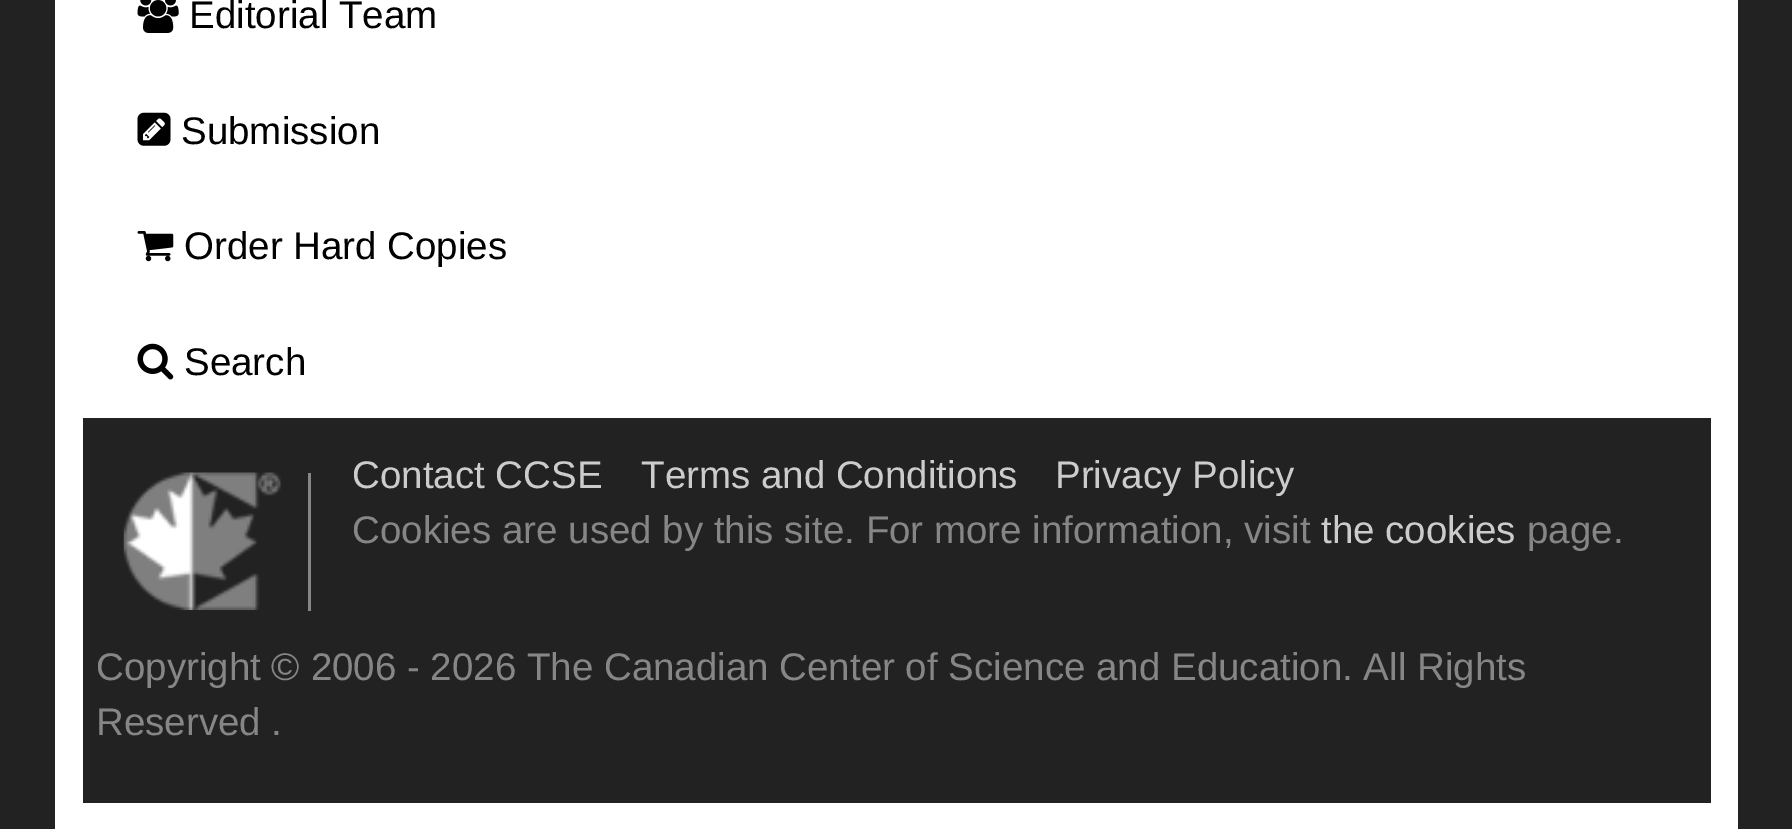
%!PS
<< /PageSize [1792 829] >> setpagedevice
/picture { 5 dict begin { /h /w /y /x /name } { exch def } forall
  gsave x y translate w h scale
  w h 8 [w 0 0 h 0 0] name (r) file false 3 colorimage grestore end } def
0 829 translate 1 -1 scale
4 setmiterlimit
0.133 setgray
0 0 1792 829 rectfill
1 setgray
55 0 1683 829 rectfill
(img1.rgb) 137 0 42 33 picture
/LiberationSans-Regular [38.5 0 0 -38.5 0 0] selectfont
0 setgray
189 28 moveto (Editorial Team) show
(img2.rgb) 137 112 34 34 picture
181 144 moveto (Submission) show
(img3.rgb) 137 231 37 31 picture
184 259 moveto (Order Hard Copies) show
(img4.rgb) 137 343 37 37 picture
184 375 moveto (Search) show
0.133 setgray
83 418 1628 385 rectfill
0.8 setgray
352 488 moveto (Contact CCSE) show
641 488 moveto (Terms and Conditions) show
1055 488 moveto (Privacy Policy) show
0.525 setgray
352 543 moveto (Cookies are used by this site. For more information, visit) show
0.8 setgray
1321 543 moveto (the cookies) show
0.525 setgray
1527 543 moveto (page.) show
96 680 moveto (Copyright © 2006 - 2026 The Canadian Center of Science and Education. All Rights) show
96 735 moveto (Reserved .) show
308 473 3 138 rectfill
(img5.rgb) 123 472 158 138 picture
showpage
